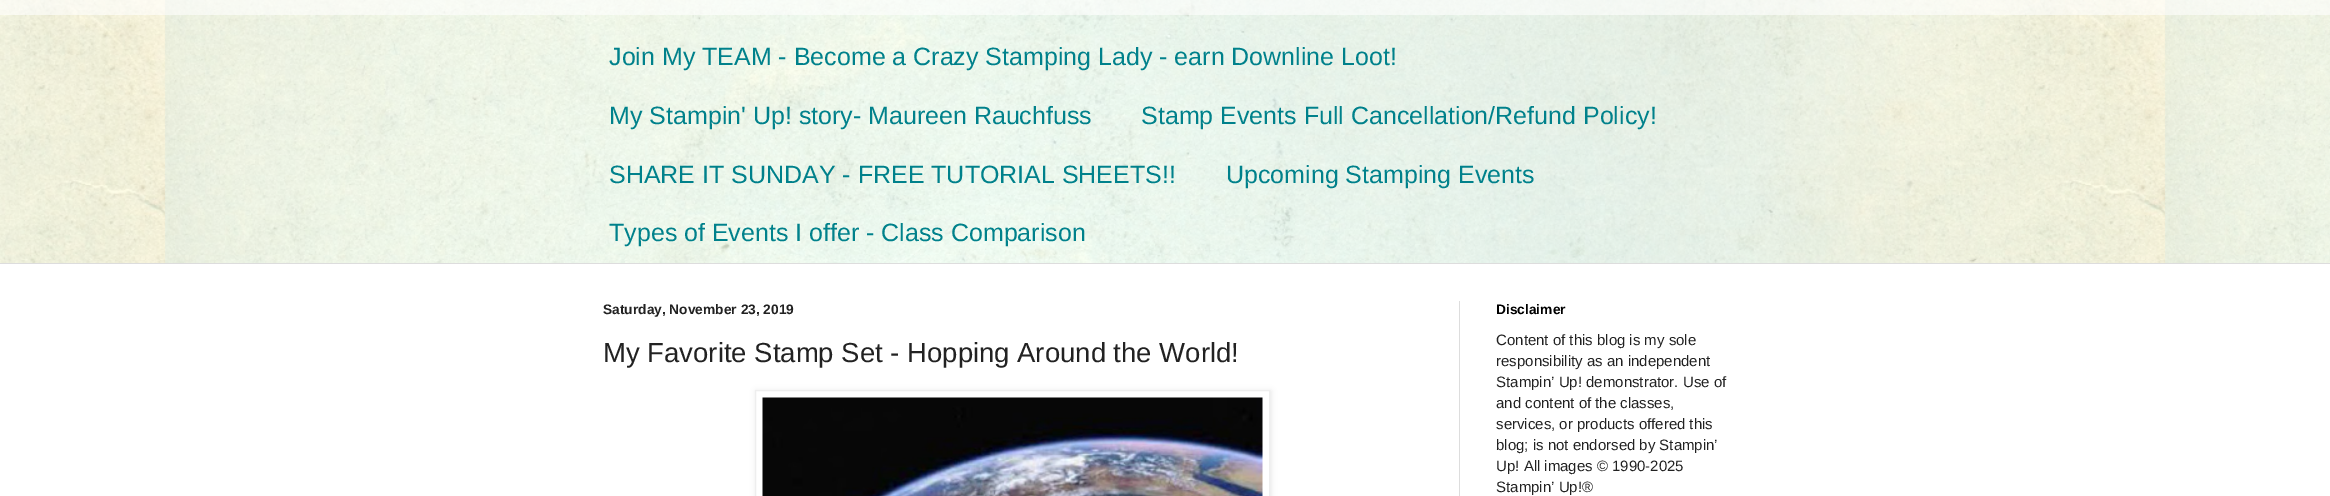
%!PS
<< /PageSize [2330 496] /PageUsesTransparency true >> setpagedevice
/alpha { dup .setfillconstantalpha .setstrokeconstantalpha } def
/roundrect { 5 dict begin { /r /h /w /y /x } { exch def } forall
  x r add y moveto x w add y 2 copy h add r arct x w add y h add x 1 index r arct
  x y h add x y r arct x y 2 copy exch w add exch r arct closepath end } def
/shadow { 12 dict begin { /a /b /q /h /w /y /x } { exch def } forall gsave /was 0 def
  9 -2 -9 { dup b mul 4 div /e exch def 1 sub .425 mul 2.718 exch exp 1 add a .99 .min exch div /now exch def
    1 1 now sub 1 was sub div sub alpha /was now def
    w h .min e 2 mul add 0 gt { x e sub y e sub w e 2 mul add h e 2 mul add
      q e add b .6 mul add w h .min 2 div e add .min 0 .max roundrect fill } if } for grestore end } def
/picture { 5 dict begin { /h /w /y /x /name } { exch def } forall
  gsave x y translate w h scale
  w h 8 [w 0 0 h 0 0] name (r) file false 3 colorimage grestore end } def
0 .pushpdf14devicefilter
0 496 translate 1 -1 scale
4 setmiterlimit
1 setgray
0 0 2330 496 rectfill
(img1.rgb) 0 0 2330 263 picture
0.59 alpha
0 0 2330 15 rectfill
/LiberationSans-Regular [25 0 0 -25 0 0] selectfont
1 alpha
0 0.506 0.545 setrgbcolor
609 65 moveto (Join My TEAM - Become a Crazy Stamping Lady - earn Downline Loot!) show
609 124 moveto (My Stampin' Up! story- Maureen Rauchfuss) show
1141 124 moveto (Stamp Events Full Cancellation/Refund Policy!) show
609 183 moveto (SHARE IT SUNDAY - FREE TUTORIAL SHEETS!!) show
1226 183 moveto (Upcoming Stamping Events) show
609 241 moveto (Types of Events I offer - Class Comparison) show
0.867 setgray
0 263 2330 1 rectfill
1459 301 1 195 rectfill
/LiberationSans-Bold [13.75 0 0 -13.75 0 0] selectfont
0.133 setgray
603 314 moveto (Saturday, November 23, 2019) show
/LiberationSans-Regular [27.5 0 0 -27.5 0 0] selectfont
603 362 moveto (My Favorite Stamp Set - Hopping Around the World!) show
gsave
newpath 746 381 moveto 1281 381 lineto 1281 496 lineto 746 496 lineto closepath 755 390 moveto 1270 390 lineto 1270 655 lineto 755 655 lineto closepath eoclip newpath
0 setgray
756 391 515 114 0 3 0.1 shadow
grestore
0.933 setgray
755.5 390.5 514 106 rectstroke
(img2.rgb) 762 397 501 99 picture
/LiberationSans-Bold [13.75 0 0 -13.75 0 0] selectfont
0 setgray
1496 314 moveto (Disclaimer) show
/LiberationSans-Regular [15 0 0 -15 0 0] selectfont
0.133 setgray
1496 345 moveto (Content of this blog is my sole) show
1496 366 moveto (responsibility as an independent) show
1496 387 moveto (Stampin’ Up! demonstrator. Use of) show
1496 408 moveto (and content of the classes,) show
1496 429 moveto (services, or products offered this) show
1496 450 moveto (blog; is not endorsed by Stampin’) show
1496 471 moveto (Up! All images © 1990-2025) show
1496 492 moveto (Stampin’ Up!®) show
.poppdf14devicefilter showpage
